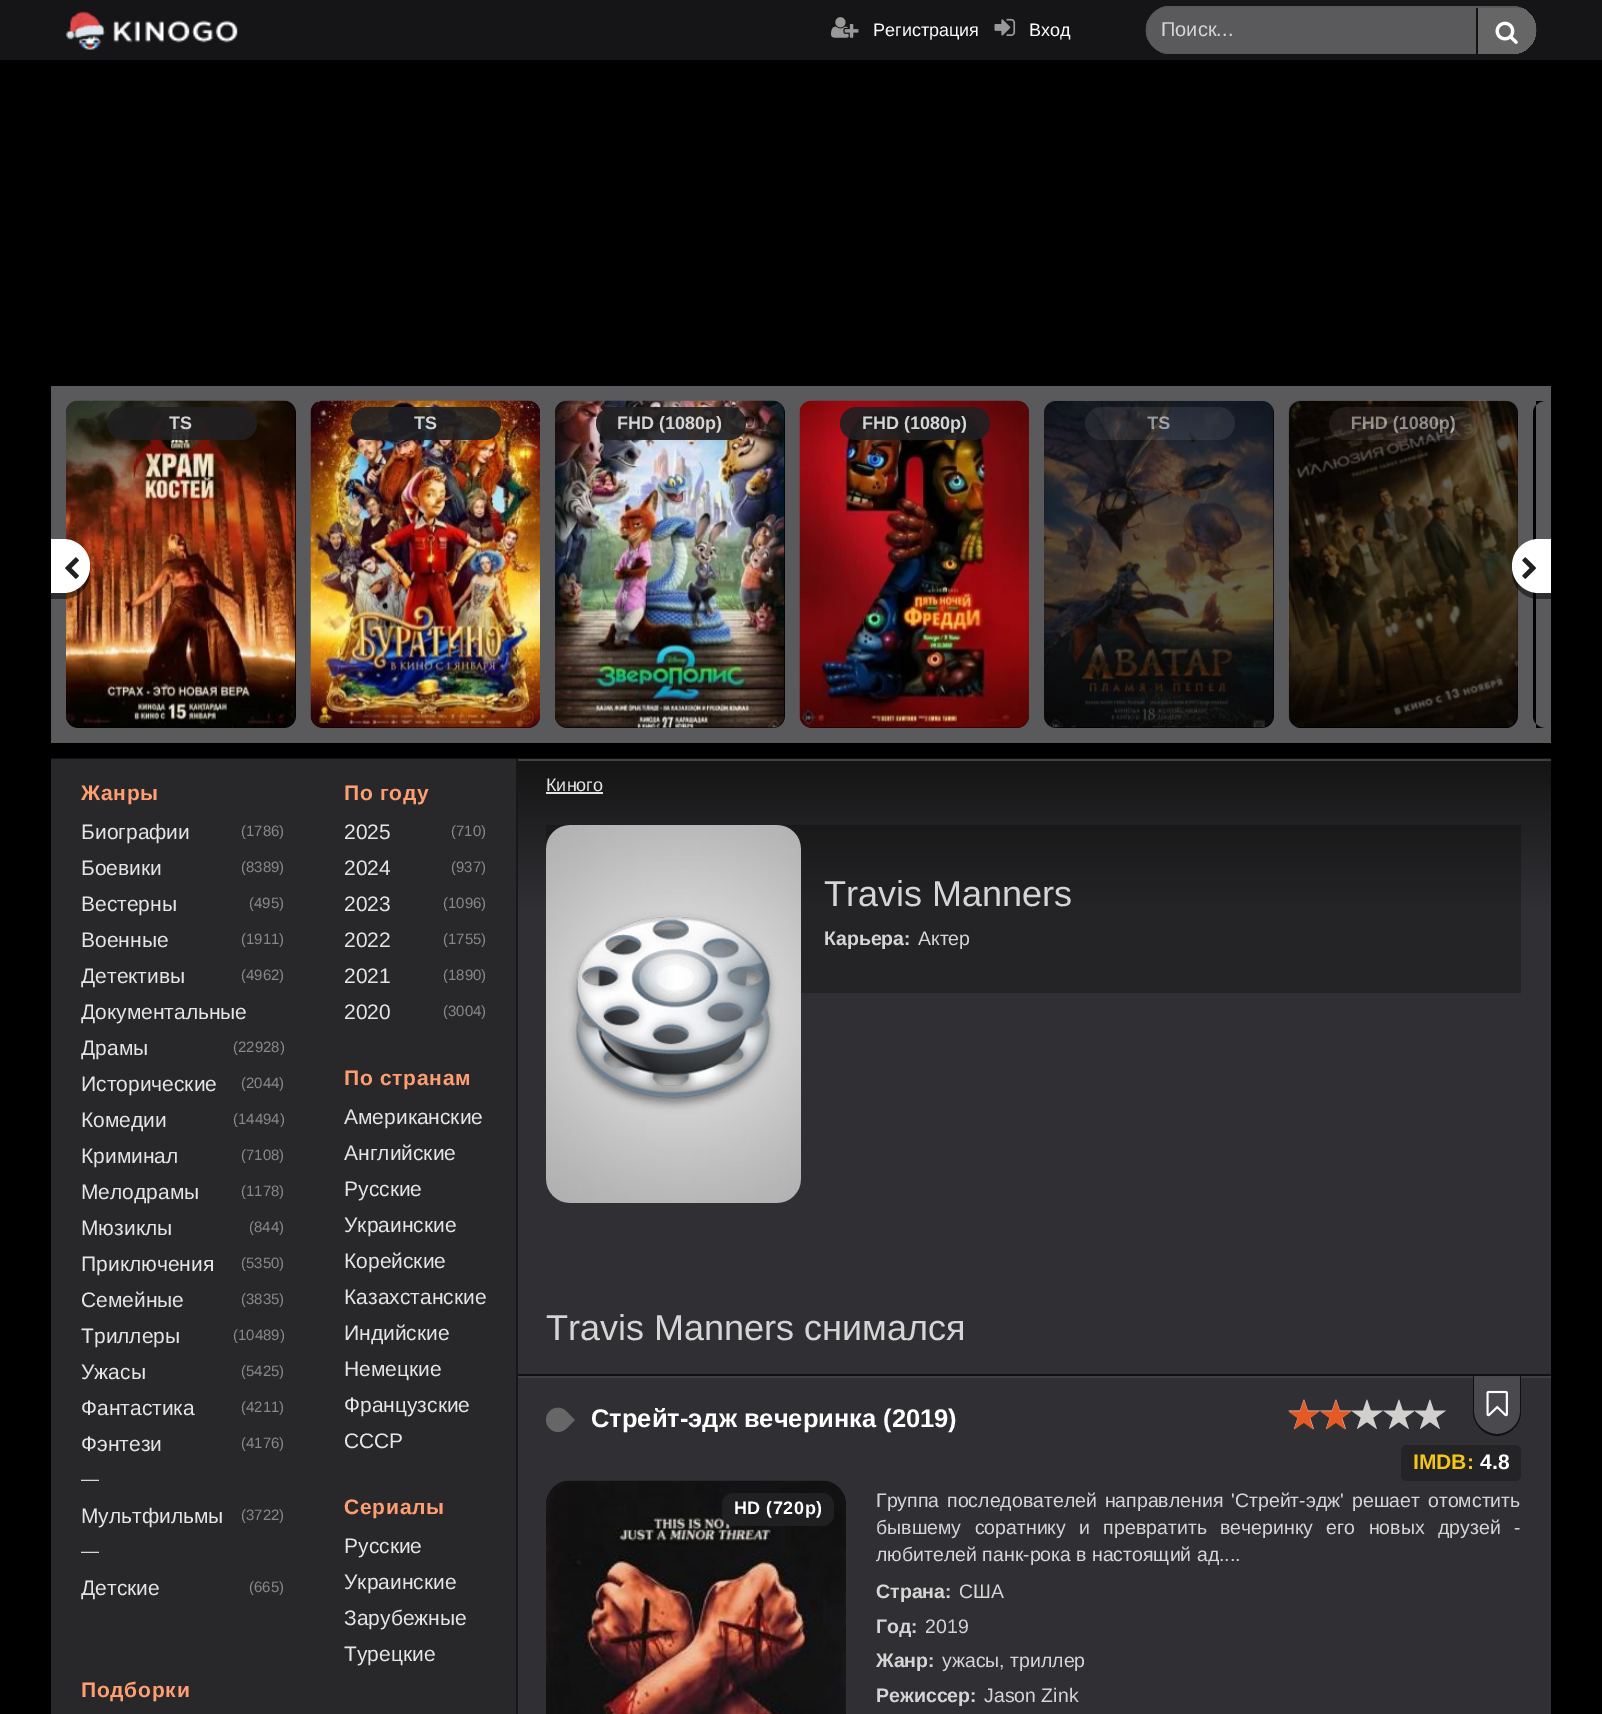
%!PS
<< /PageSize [1602 1714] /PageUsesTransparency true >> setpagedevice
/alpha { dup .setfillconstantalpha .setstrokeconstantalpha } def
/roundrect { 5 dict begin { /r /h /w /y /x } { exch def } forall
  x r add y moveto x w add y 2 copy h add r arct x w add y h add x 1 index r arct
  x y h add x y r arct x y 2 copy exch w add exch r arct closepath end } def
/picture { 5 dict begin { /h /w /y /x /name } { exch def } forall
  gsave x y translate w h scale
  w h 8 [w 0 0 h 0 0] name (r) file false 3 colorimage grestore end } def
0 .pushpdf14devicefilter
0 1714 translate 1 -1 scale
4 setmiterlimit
0 setgray
0 0 1602 1714 rectfill
0.082 0.078 0.086 setrgbcolor
0 0 1602 60 rectfill
(img1.rgb) 66 11 172 39 picture
(img2.rgb) 831 17 28 21 picture
/LiberationSans-Regular [18 0 0 -18 0 0] selectfont
1 setgray
873 36 moveto (Регистрация) show
(img3.rgb) 994 18 22 18 picture
1029 36 moveto (Вход) show
0.353 0.353 0.365 setrgbcolor
1146 6 390 48 24 roundrect fill
0.345 setgray
newpath 1170 54 moveto 1512 54 lineto 1515 54 1519 53 1522 52 curveto 1160 52 lineto 1163 53 1167 54 1170 54 curveto closepath 1148 40 moveto 1145 34 1145 26 1148 20 curveto closepath 1170 6 moveto 1167 6 1163 7 1160 8 curveto 1522 8 lineto 1519 7 1515 6 1512 6 curveto closepath 1534 20 moveto 1534 40 lineto 1537 34 1537 26 1534 20 curveto closepath eofill
/LiberationSans-Regular [20 0 0 -20 0 0] selectfont
0.835 setgray
1161 36 moveto (Поиск...) show
gsave
1146 6 390 48 24 roundrect clip newpath
0.4 setgray
newpath 1476 8 moveto 1531 8 lineto 1534 8 1536 10 1536 13 curveto 1536 51 lineto 1536 54 1534 56 1531 56 curveto 1476 56 lineto closepath fill
grestore
0.067 setgray
1476 8 2 46 rectfill
(img4.rgb) 1495 21 23 23 picture
0.353 0.353 0.365 setrgbcolor
51 386 1500 357 rectfill
0 setgray
66 401 230 327 12 roundrect fill
(img5.rgb) 66 400 230 328 picture
0.9 alpha
0.125 0.122 0.129 setrgbcolor
107 407 150 33 16.5 roundrect fill
/LiberationSans-Bold [18 0 0 -18 0 0] selectfont
1 alpha
0.835 setgray
169 429 moveto (TS) show
0 setgray
311 401 229 327 12 roundrect fill
(img6.rgb) 310 400 230 328 picture
0.9 alpha
0.125 0.122 0.129 setrgbcolor
351 407 150 33 16.5 roundrect fill
1 alpha
0.835 setgray
414 429 moveto (TS) show
0 setgray
555 401 230 327 12 roundrect fill
(img7.rgb) 555 400 230 328 picture
0.9 alpha
0.125 0.122 0.129 setrgbcolor
596 407 150 33 16.5 roundrect fill
1 alpha
0.835 setgray
617 429 moveto (FHD \(1080p\)) show
0 setgray
800 401 229 327 12 roundrect fill
(img8.rgb) 799 400 230 328 picture
0.9 alpha
0.125 0.122 0.129 setrgbcolor
840 407 150 33 16.5 roundrect fill
1 alpha
0.835 setgray
862 429 moveto (FHD \(1080p\)) show
0 setgray
1044 401 230 327 12 roundrect fill
0.114 0.11 0.118 setrgbcolor
1085 407 150 33 16.5 roundrect fill
0.804 setgray
1147 429 moveto (TS) show
(img9.rgb) 1044 400 230 328 picture
0 setgray
1289 401 229 327 12 roundrect fill
0.114 0.11 0.118 setrgbcolor
1329 407 150 33 16.5 roundrect fill
0.804 setgray
1351 429 moveto (FHD \(1080p\)) show
(img10.rgb) 1288 400 230 327 picture
0 setgray
newpath 1545 401 moveto 1536 401 lineto 1536 728 lineto 1545 728 lineto 1538.5 728 1533 722.5 1533 716 curveto 1533 413 lineto 1533 406.5 1538.5 401 1545 401 curveto closepath fill
gsave
51 386 1500 357 rectclip
0.5 alpha
newpath 36 592 moveto 36 599 lineto 63 599 lineto 78 599 90 587 90 572 curveto 90 569 lineto 88 582 77 592 63 592 curveto closepath fill
grestore
1 setgray
newpath 51 539 moveto 63 539 lineto 78 539 90 551 90 566 curveto 90 581 78 593 63 593 curveto 51 593 lineto closepath fill
(img11.rgb) 65 557 14 22 picture
gsave
51 386 1500 357 rectclip
0.5 alpha
0 setgray
newpath 1512 569 moveto 1512 572 lineto 1512 587 1524 599 1539 599 curveto 1566 599 lineto 1566 592 lineto 1539 592 lineto 1525 592 1514 582 1512 569 curveto closepath fill
grestore
newpath 1539 539 moveto 1551 539 lineto 1551 593 lineto 1539 593 lineto 1524 593 1512 581 1512 566 curveto 1512 551 1524 539 1539 539 curveto closepath fill
(img12.rgb) 1522 557 14 22 picture
0.067 setgray
51 758 1500 1 rectfill
0.157 0.153 0.165 setrgbcolor
51 759 465 955 rectfill
0.251 setgray
516 759 1035 2 rectfill
gsave newpath 518 761 moveto 1551 761 lineto 1551 1714 lineto 518 1714 lineto closepath clip newpath
<< /ShadingType 2 /ColorSpace /DeviceRGB /Coords [1034 759 1034 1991] /Extend [true true] /Function << /FunctionType 3 /Domain [0 1] /Functions [<< /FunctionType 2 /Domain [0 1] /C0 [0.082 0.082 0.082] /C1 [0.188 0.184 0.2] /N 1 >> << /FunctionType 2 /Domain [0 1] /C0 [0.188 0.184 0.2] /C1 [0.188 0.184 0.2] /N 1 >>] /Bounds [0.12] /Encode [0 1 0 1] >> >> shfill grestore
516 1376 1035 2 rectfill
0.067 setgray
516 1374 1035 2 rectfill
0.09 0.086 0.094 setrgbcolor
516 759 2 955 rectfill
gsave newpath 546 825 moveto 1521 825 lineto 1521 993 lineto 546 993 lineto closepath clip newpath
<< /ShadingType 2 /ColorSpace /DeviceRGB /Coords [1034 759 1034 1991] /Extend [true true] /Function << /FunctionType 3 /Domain [0 1] /Functions [<< /FunctionType 2 /Domain [0 1] /C0 [0.063 0.063 0.063] /C1 [0.141 0.141 0.153] /N 1 >> << /FunctionType 2 /Domain [0 1] /C0 [0.141 0.141 0.153] /C1 [0.141 0.141 0.153] /N 1 >>] /Bounds [0.12] /Encode [0 1 0 1] >> >> shfill grestore
/LiberationSans-Regular [18 0 0 -18 0 0] selectfont
0.898 setgray
546 791 moveto (Киного) show
546 792 57 2 rectfill
(img13.rgb) 546 825 255 378 picture
/LiberationSans-Regular [36 0 0 -36 0 0] selectfont
0.835 setgray
824 906 moveto (Travis Manners) show
/LiberationSans-Bold [19.5 0 0 -19.5 0 0] selectfont
824 945 moveto (Карьера:) show
/LiberationSans-Regular [19.5 0 0 -19.5 0 0] selectfont
918 945 moveto (Актер) show
/LiberationSans-Regular [36 0 0 -36 0 0] selectfont
546 1340 moveto (Travis Manners снимался) show
0.4 setgray
newpath 549.5 1411.5 moveto 554 1406.5 562 1406.5 566.5 1411.5 curveto 575 1420 lineto 571.5 1423 566.5 1429.5 562.5 1431 curveto 550.5 1436 540.5 1420.5 549.5 1411.5 curveto closepath fill
/LiberationSans-Bold [25.5 0 0 -25.5 0 0] selectfont
1 setgray
591 1427 moveto (Стрейт-эдж вечеринка \(2019\)) show
(img14.rgb) 1288 1399 158 30 picture
(img15.rgb) 1288 1400 64 30 picture
0.29 0.286 0.306 setrgbcolor
newpath 1473 1376 moveto 1521 1376 lineto 1521 1412 lineto 1521 1425.5 1510.5 1436 1497 1436 curveto 1483.5 1436 1473 1425.5 1473 1412 curveto closepath fill
0.067 setgray
newpath 1473 1376 moveto 1521 1376 lineto 1521 1412 lineto 1521 1425 1510 1436 1497 1436 curveto 1484 1436 1473 1425 1473 1412 curveto closepath 1474 1376 moveto 1520 1376 lineto 1520 1412 lineto 1520 1424 1509 1434 1497 1434 curveto 1485 1434 1474 1424 1474 1412 curveto closepath eofill
(img16.rgb) 1486 1390 22 27 picture
0.141 0.141 0.153 setrgbcolor
1401 1445 120 36 6 roundrect fill
/LiberationSans-Bold [21 0 0 -21 0 0] selectfont
0.961 0.773 0.094 setrgbcolor
1413 1469 moveto (IMDB:) show
1 setgray
1480 1469 moveto (4.8) show
(img17.rgb) 546 1480 300 234 picture
0.125 0.122 0.129 setrgbcolor
722 1493 112 33 12 roundrect fill
/LiberationSans-Bold [18 0 0 -18 0 0] selectfont
1 setgray
734 1514 moveto 0.5 0 (HD \(720p\)) ashow
/LiberationSans-Regular [19.5 0 0 -19.5 0 0] selectfont
0.835 setgray
876 1507 moveto 2.5 0 32 (Группа последователей направления 'Стрейт-эдж' решает отомстить) widthshow
876 1534 moveto 8 0 32 (бывшему соратнику и превратить вечеринку его новых друзей -) widthshow
876 1561 moveto (любителей панк-рока в настоящий ад....) show
/LiberationSans-Bold [19.5 0 0 -19.5 0 0] selectfont
876 1598 moveto (Страна:) show
/LiberationSans-Regular [19.5 0 0 -19.5 0 0] selectfont
959 1598 moveto (США) show
/LiberationSans-Bold [19.5 0 0 -19.5 0 0] selectfont
876 1633 moveto (Год:) show
/LiberationSans-Regular [19.5 0 0 -19.5 0 0] selectfont
925 1633 moveto (2019) show
/LiberationSans-Bold [19.5 0 0 -19.5 0 0] selectfont
876 1667 moveto (Жанр:) show
/LiberationSans-Regular [19.5 0 0 -19.5 0 0] selectfont
942 1667 moveto (ужасы, триллер) show
/LiberationSans-Bold [19.5 0 0 -19.5 0 0] selectfont
876 1702 moveto (Режиссер:) show
/LiberationSans-Regular [19.5 0 0 -19.5 0 0] selectfont
984 1702 moveto (Jason Zink) show
/LiberationSans-Bold [21 0 0 -21 0 0] selectfont
1 0.624 0.443 setrgbcolor
81 800 moveto 0.75 0 (Жанры) ashow
/LiberationSans-Regular [21 0 0 -21 0 0] selectfont
0.898 setgray
81 839 moveto (Биографии) show
/LiberationSans-Regular [15 0 0 -15 0 0] selectfont
0.533 setgray
241 836 moveto (\(1786\)) show
/LiberationSans-Regular [21 0 0 -21 0 0] selectfont
0.898 setgray
81 875 moveto (Боевики) show
/LiberationSans-Regular [15 0 0 -15 0 0] selectfont
0.533 setgray
241 872 moveto (\(8389\)) show
/LiberationSans-Regular [21 0 0 -21 0 0] selectfont
0.898 setgray
81 911 moveto (Вестерны) show
/LiberationSans-Regular [15 0 0 -15 0 0] selectfont
0.533 setgray
249 908 moveto (\(495\)) show
/LiberationSans-Regular [21 0 0 -21 0 0] selectfont
0.898 setgray
81 947 moveto (Военные) show
/LiberationSans-Regular [15 0 0 -15 0 0] selectfont
0.533 setgray
241 944 moveto (\(1911\)) show
/LiberationSans-Regular [21 0 0 -21 0 0] selectfont
0.898 setgray
81 983 moveto (Детективы) show
/LiberationSans-Regular [15 0 0 -15 0 0] selectfont
0.533 setgray
241 980 moveto (\(4962\)) show
/LiberationSans-Regular [21 0 0 -21 0 0] selectfont
0.898 setgray
81 1019 moveto (Документальные) show
81 1055 moveto (Драмы) show
/LiberationSans-Regular [15 0 0 -15 0 0] selectfont
0.533 setgray
233 1052 moveto (\(22928\)) show
/LiberationSans-Regular [21 0 0 -21 0 0] selectfont
0.898 setgray
81 1091 moveto (Исторические) show
/LiberationSans-Regular [15 0 0 -15 0 0] selectfont
0.533 setgray
241 1088 moveto (\(2044\)) show
/LiberationSans-Regular [21 0 0 -21 0 0] selectfont
0.898 setgray
81 1127 moveto (Комедии) show
/LiberationSans-Regular [15 0 0 -15 0 0] selectfont
0.533 setgray
233 1124 moveto (\(14494\)) show
/LiberationSans-Regular [21 0 0 -21 0 0] selectfont
0.898 setgray
81 1163 moveto (Криминал) show
/LiberationSans-Regular [15 0 0 -15 0 0] selectfont
0.533 setgray
241 1160 moveto (\(7108\)) show
/LiberationSans-Regular [21 0 0 -21 0 0] selectfont
0.898 setgray
81 1199 moveto (Мелодрамы) show
/LiberationSans-Regular [15 0 0 -15 0 0] selectfont
0.533 setgray
241 1196 moveto (\(1178\)) show
/LiberationSans-Regular [21 0 0 -21 0 0] selectfont
0.898 setgray
81 1235 moveto (Мюзиклы) show
/LiberationSans-Regular [15 0 0 -15 0 0] selectfont
0.533 setgray
249 1232 moveto (\(844\)) show
/LiberationSans-Regular [21 0 0 -21 0 0] selectfont
0.898 setgray
81 1271 moveto (Приключения) show
/LiberationSans-Regular [15 0 0 -15 0 0] selectfont
0.533 setgray
241 1268 moveto (\(5350\)) show
/LiberationSans-Regular [21 0 0 -21 0 0] selectfont
0.898 setgray
81 1307 moveto (Семейные) show
/LiberationSans-Regular [15 0 0 -15 0 0] selectfont
0.533 setgray
241 1304 moveto (\(3835\)) show
/LiberationSans-Regular [21 0 0 -21 0 0] selectfont
0.898 setgray
81 1343 moveto (Триллеры) show
/LiberationSans-Regular [15 0 0 -15 0 0] selectfont
0.533 setgray
233 1340 moveto (\(10489\)) show
/LiberationSans-Regular [21 0 0 -21 0 0] selectfont
0.898 setgray
81 1379 moveto (Ужасы) show
/LiberationSans-Regular [15 0 0 -15 0 0] selectfont
0.533 setgray
241 1376 moveto (\(5425\)) show
/LiberationSans-Regular [21 0 0 -21 0 0] selectfont
0.898 setgray
81 1415 moveto (Фантастика) show
/LiberationSans-Regular [15 0 0 -15 0 0] selectfont
0.533 setgray
241 1412 moveto (\(4211\)) show
/LiberationSans-Regular [21 0 0 -21 0 0] selectfont
0.898 setgray
81 1451 moveto (Фэнтези) show
/LiberationSans-Regular [15 0 0 -15 0 0] selectfont
0.533 setgray
241 1448 moveto (\(4176\)) show
/LiberationSans-Regular [18 0 0 -18 0 0] selectfont
0.835 setgray
81 1485 moveto (—) show
/LiberationSans-Regular [21 0 0 -21 0 0] selectfont
0.898 setgray
81 1523 moveto (Мультфильмы) show
/LiberationSans-Regular [15 0 0 -15 0 0] selectfont
0.533 setgray
241 1520 moveto (\(3722\)) show
/LiberationSans-Regular [18 0 0 -18 0 0] selectfont
0.835 setgray
81 1557 moveto (—) show
/LiberationSans-Regular [21 0 0 -21 0 0] selectfont
0.898 setgray
81 1595 moveto (Детские) show
/LiberationSans-Regular [15 0 0 -15 0 0] selectfont
0.533 setgray
249 1592 moveto (\(665\)) show
/LiberationSans-Bold [21 0 0 -21 0 0] selectfont
1 0.624 0.443 setrgbcolor
81 1697 moveto 0.75 0 (Подборки) ashow
344 800 moveto 0.75 0 (По году) ashow
/LiberationSans-Regular [21 0 0 -21 0 0] selectfont
0.898 setgray
344 839 moveto (2025) show
/LiberationSans-Regular [15 0 0 -15 0 0] selectfont
0.533 setgray
451 836 moveto (\(710\)) show
/LiberationSans-Regular [21 0 0 -21 0 0] selectfont
0.898 setgray
344 875 moveto (2024) show
/LiberationSans-Regular [15 0 0 -15 0 0] selectfont
0.533 setgray
451 872 moveto (\(937\)) show
/LiberationSans-Regular [21 0 0 -21 0 0] selectfont
0.898 setgray
344 911 moveto (2023) show
/LiberationSans-Regular [15 0 0 -15 0 0] selectfont
0.533 setgray
443 908 moveto (\(1096\)) show
/LiberationSans-Regular [21 0 0 -21 0 0] selectfont
0.898 setgray
344 947 moveto (2022) show
/LiberationSans-Regular [15 0 0 -15 0 0] selectfont
0.533 setgray
443 944 moveto (\(1755\)) show
/LiberationSans-Regular [21 0 0 -21 0 0] selectfont
0.898 setgray
344 983 moveto (2021) show
/LiberationSans-Regular [15 0 0 -15 0 0] selectfont
0.533 setgray
443 980 moveto (\(1890\)) show
/LiberationSans-Regular [21 0 0 -21 0 0] selectfont
0.898 setgray
344 1019 moveto (2020) show
/LiberationSans-Regular [15 0 0 -15 0 0] selectfont
0.533 setgray
443 1016 moveto (\(3004\)) show
/LiberationSans-Bold [21 0 0 -21 0 0] selectfont
1 0.624 0.443 setrgbcolor
344 1085 moveto 0.75 0 (По странам) ashow
/LiberationSans-Regular [21 0 0 -21 0 0] selectfont
0.898 setgray
344 1124 moveto (Американские) show
344 1160 moveto (Английские) show
344 1196 moveto (Русские) show
344 1232 moveto (Украинские) show
344 1268 moveto (Корейские) show
344 1304 moveto (Казахстанские) show
344 1340 moveto (Индийские) show
344 1376 moveto (Немецкие) show
344 1412 moveto (Французские) show
344 1448 moveto (СССР) show
/LiberationSans-Bold [21 0 0 -21 0 0] selectfont
1 0.624 0.443 setrgbcolor
344 1514 moveto 0.75 0 (Сериалы) ashow
/LiberationSans-Regular [21 0 0 -21 0 0] selectfont
0.898 setgray
344 1553 moveto (Русские) show
344 1589 moveto (Украинские) show
344 1625 moveto (Зарубежные) show
344 1661 moveto (Турецкие) show
.poppdf14devicefilter showpage
